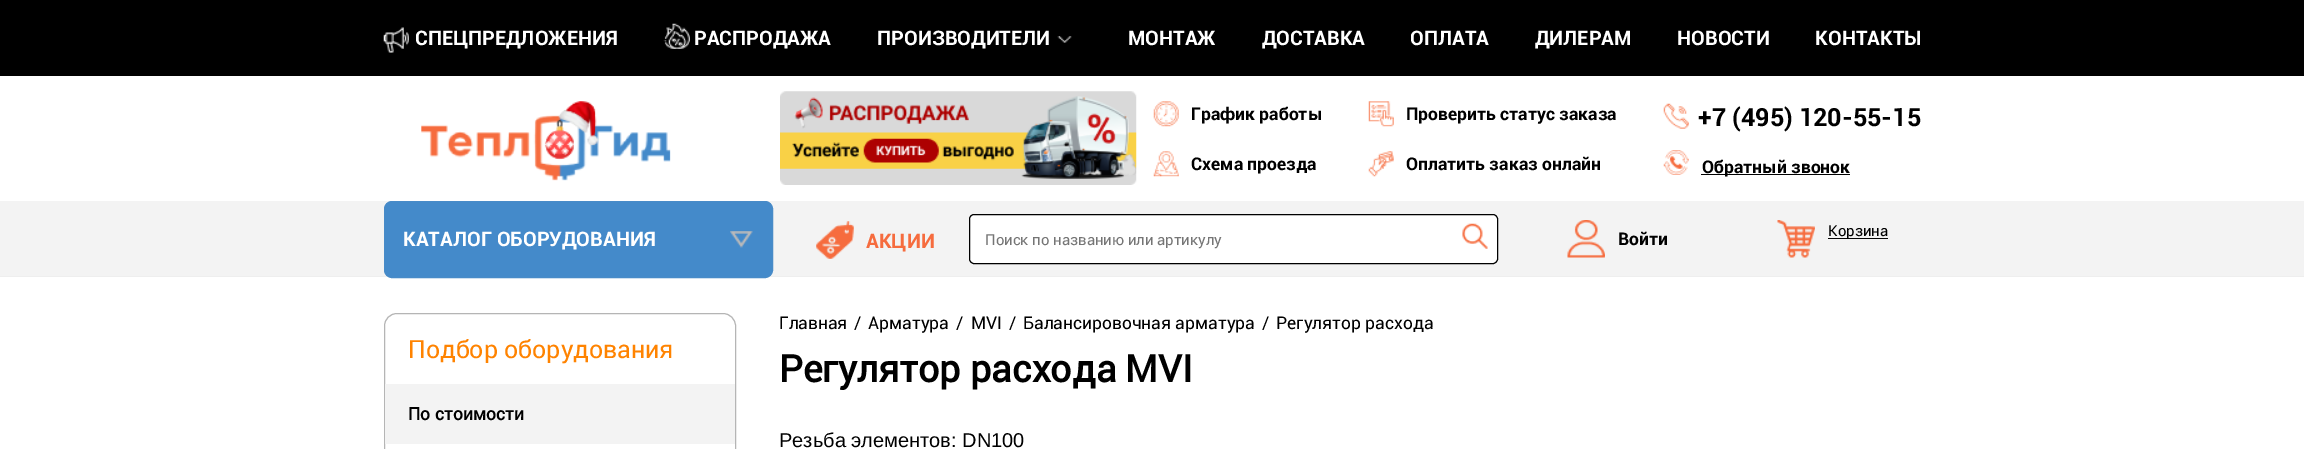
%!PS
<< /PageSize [2304 449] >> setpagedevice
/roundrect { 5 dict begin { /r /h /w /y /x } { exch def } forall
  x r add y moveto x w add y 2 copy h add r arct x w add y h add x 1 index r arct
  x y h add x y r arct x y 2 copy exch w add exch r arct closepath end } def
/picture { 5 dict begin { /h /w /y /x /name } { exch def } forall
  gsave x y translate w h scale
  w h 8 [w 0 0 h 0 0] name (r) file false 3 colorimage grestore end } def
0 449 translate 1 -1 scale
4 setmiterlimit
1 setgray
0 0 2304 449 rectfill
0.933 setgray
0 276 2304 1 rectfill
0 setgray
0 0 2304 76 rectfill
(img1.rgb) 383 27 26 26 picture
/Roboto-Bold [20 0 0 -20 0 0] selectfont
1 setgray
415 45 moveto (CПЕЦПРЕДЛОЖЕНИЯ) show
(img2.rgb) 663 23 27 26 picture
694 45 moveto (РАСПРОДАЖА) show
877 45 moveto (ПРОИЗВОДИТЕЛИ) show
(img3.rgb) 1057 36 15 7 picture
1128 45 moveto (МОНТАЖ) show
1262 45 moveto (ДОСТАВКА) show
1410 45 moveto (ОПЛАТА) show
1535 45 moveto (ДИЛЕРАМ) show
1677 45 moveto (НОВОСТИ) show
1815 45 moveto (КОНТАКТЫ) show
(img4.rgb) 421 101 250 80 picture
(img5.rgb) 780 91 357 94 picture
(img6.rgb) 1153 101 26 26 picture
/Roboto-Bold [17.5 0 0 -17.5 0 0] selectfont
0 setgray
1191 120 moveto (График работы) show
(img7.rgb) 1368 101 26 26 picture
1406 120 moveto (Проверить статус заказа) show
(img8.rgb) 1663 103 26 26 picture
/Roboto-Bold [25 0 0 -25 0 0] selectfont
1698 126 moveto (+7 \(495\) 120-55-15) show
(img9.rgb) 1153 151 26 26 picture
/Roboto-Bold [17.5 0 0 -17.5 0 0] selectfont
1191 170 moveto (Схема проезда) show
(img10.rgb) 1368 151 26 26 picture
1406 170 moveto (Оплатить заказ онлайн) show
(img11.rgb) 1663 150 26 25 picture
1701 174 149 1 rectfill
1702 173 moveto (Обратный звонок) show
0.953 setgray
0 201 2304 75 rectfill
0.267 0.541 0.792 setrgbcolor
384.5 201.5 388 76 7.5 roundrect gsave fill grestore
0.282 0.545 0.784 setrgbcolor
stroke
(img12.rgb) 730 231 23 17 picture
/Roboto-Bold [20 0 0 -20 0 0] selectfont
1 setgray
403 246 moveto (КАТАЛОГ ОБОРУДОВАНИЯ) show
(img13.rgb) 816 221 38 38 picture
0.965 0.424 0.243 setrgbcolor
866 248 moveto (АКЦИИ) show
1 setgray
969.5 214.5 528 49 4.5 roundrect gsave fill grestore
0 setgray
stroke
/Roboto-Regular [15 0 0 -15 0 0] selectfont
0.459 setgray
985 245 moveto (Поиск по названию или артикулу) show
(img14.rgb) 1462 223 26 26 picture
(img15.rgb) 1567 220 38 38 picture
/Roboto-Bold [17.5 0 0 -17.5 0 0] selectfont
0 setgray
1618 245 moveto (Войти) show
(img16.rgb) 1777 220 38 38 picture
0.02 setgray
1828 238 60 1 rectfill
/Roboto-Regular [15 0 0 -15 0 0] selectfont
0 setgray
1828 236 moveto (Корзина) show
0.71 setgray
384.5 313.5 351 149 12.5 roundrect stroke
/Roboto-Regular [25 0 0 -25 0 0] selectfont
1 0.514 0 setrgbcolor
408 358 moveto (Подбор оборудования) show
0.953 setgray
385 384 350 60 rectfill
/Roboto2-Bold [17.5 0 0 -17.5 0 0] selectfont
0 setgray
408 420 moveto (По стоимости) show
/Roboto-Regular [17.5 0 0 -17.5 0 0] selectfont
779 329 moveto (Главная) show
854 329 moveto (/) show
868 329 moveto (Арматура) show
956 329 moveto (/) show
971 329 moveto (MVI) show
1009 329 moveto (/) show
1023 329 moveto (Балансировочная арматура) show
1262 329 moveto (/) show
1276 329 moveto (Регулятор расхода) show
/Roboto2-Bold [37.5 0 0 -37.5 0 0] selectfont
779 382 moveto (Регулятор расхода MVI) show
/LiberationSans-Regular [20 0 0 -20 0 0] selectfont
779 447 moveto (Резьба элементов: DN100) show
showpage
